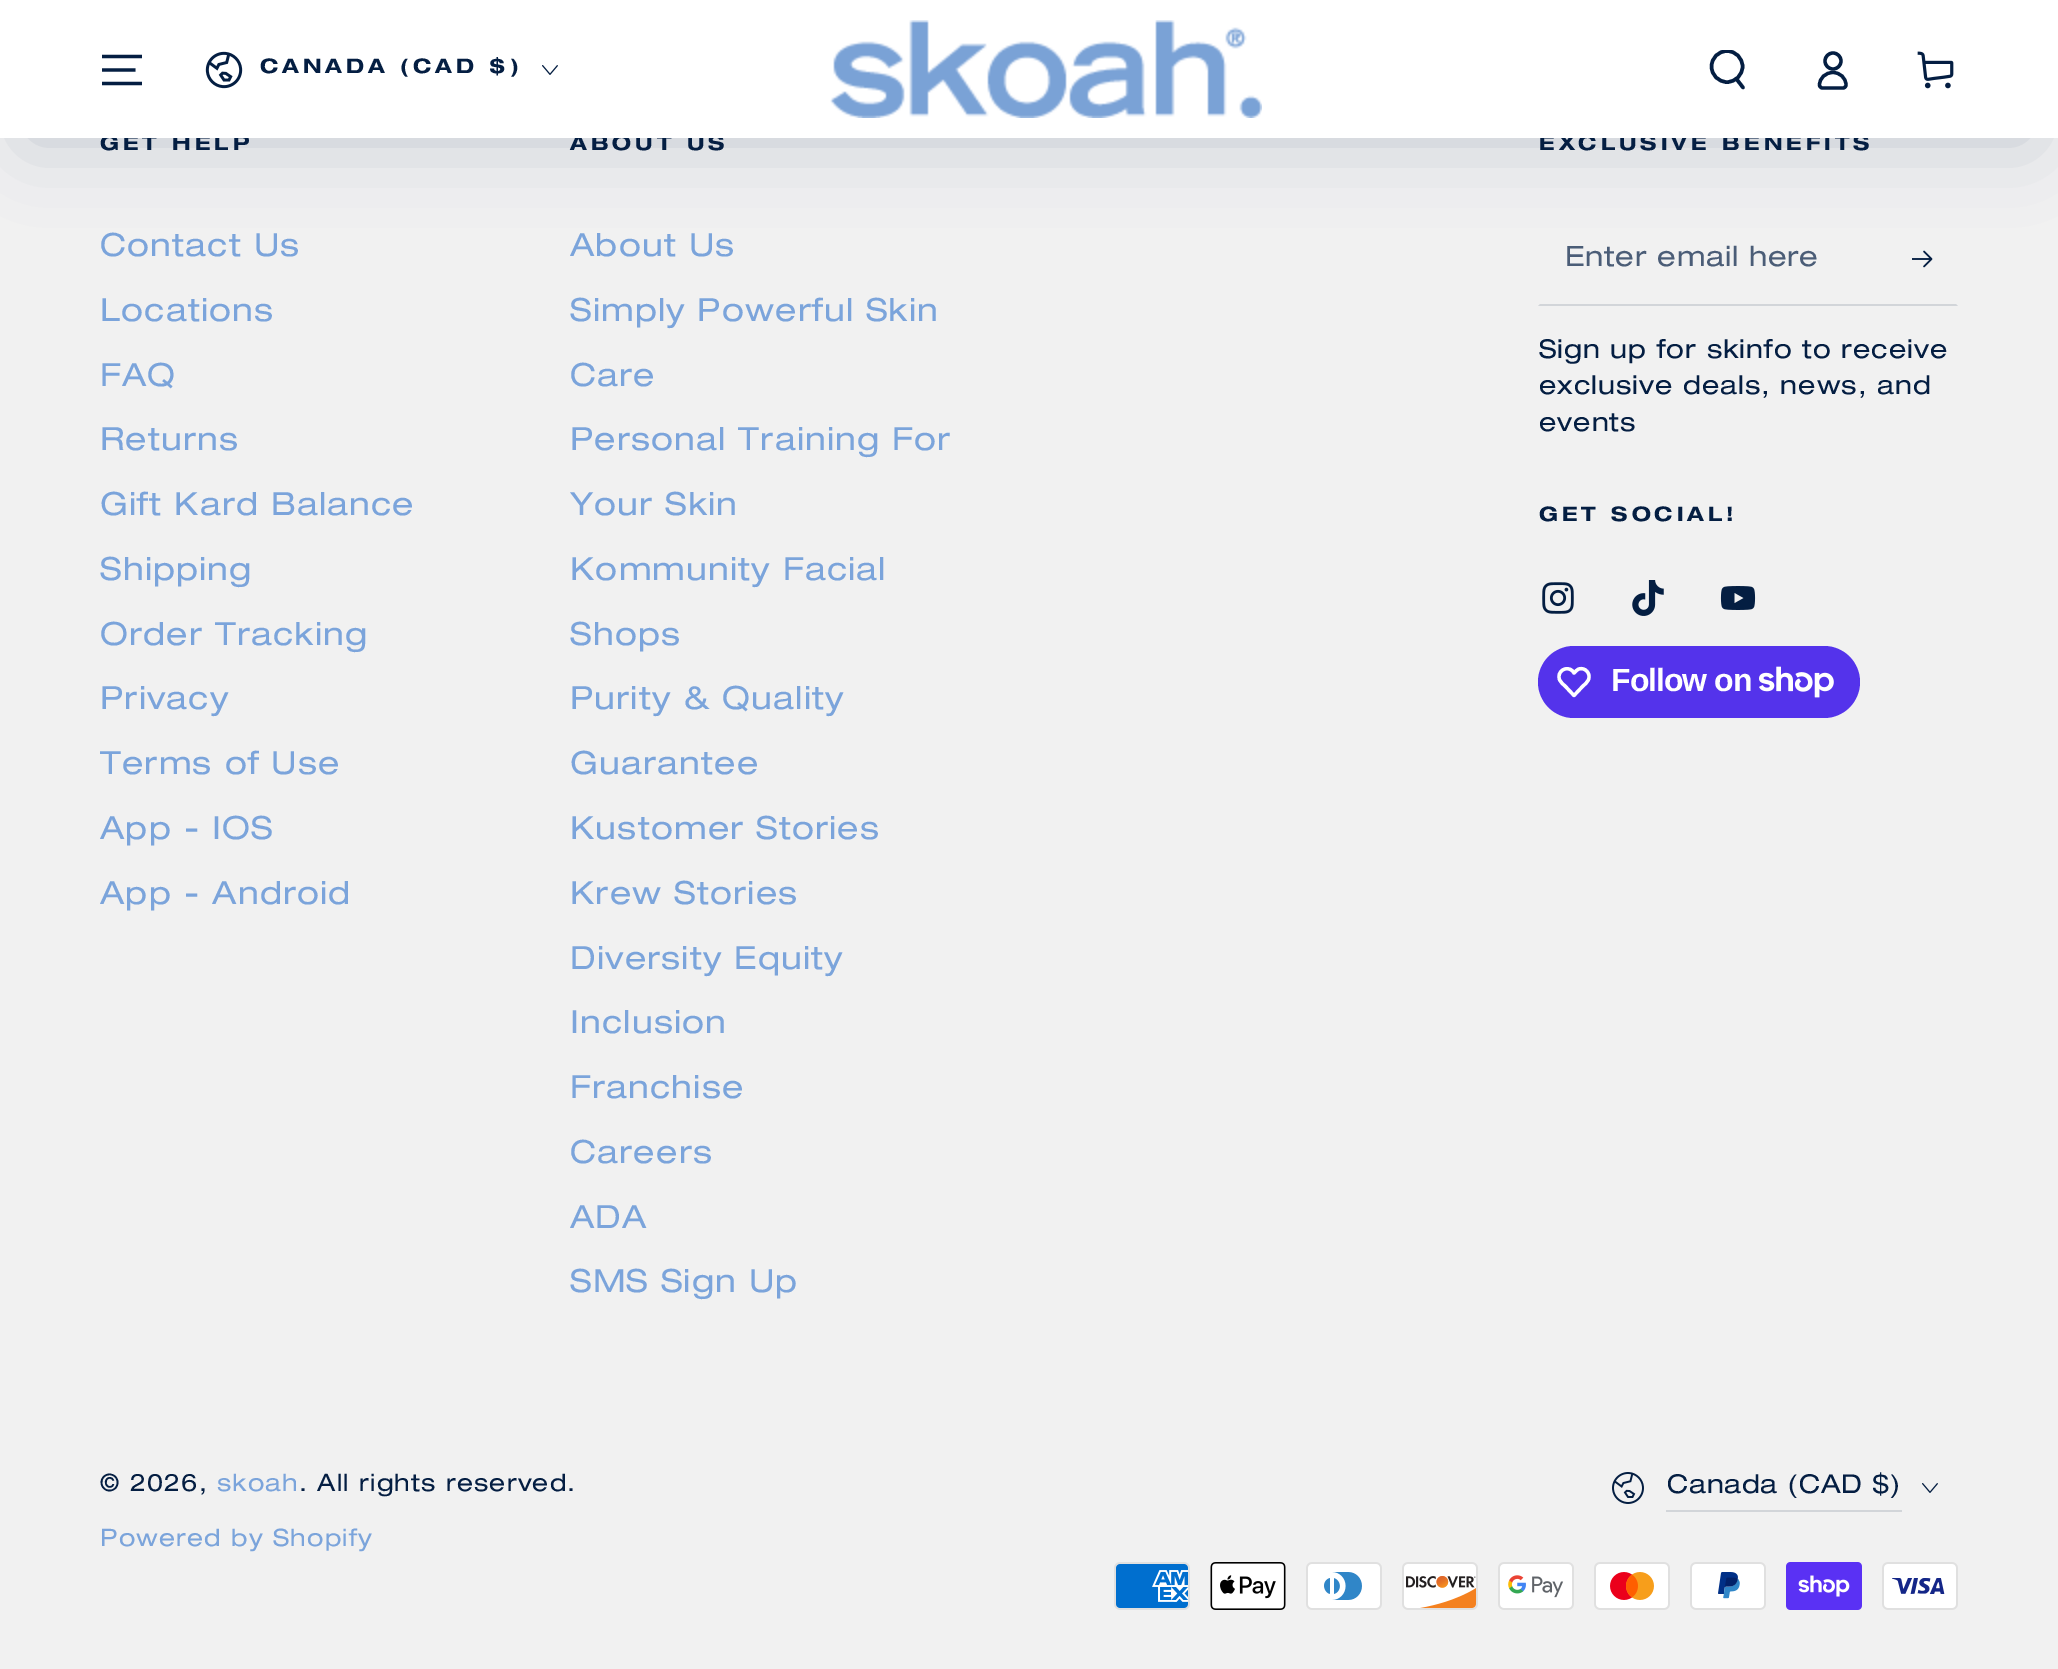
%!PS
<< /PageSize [2058 1669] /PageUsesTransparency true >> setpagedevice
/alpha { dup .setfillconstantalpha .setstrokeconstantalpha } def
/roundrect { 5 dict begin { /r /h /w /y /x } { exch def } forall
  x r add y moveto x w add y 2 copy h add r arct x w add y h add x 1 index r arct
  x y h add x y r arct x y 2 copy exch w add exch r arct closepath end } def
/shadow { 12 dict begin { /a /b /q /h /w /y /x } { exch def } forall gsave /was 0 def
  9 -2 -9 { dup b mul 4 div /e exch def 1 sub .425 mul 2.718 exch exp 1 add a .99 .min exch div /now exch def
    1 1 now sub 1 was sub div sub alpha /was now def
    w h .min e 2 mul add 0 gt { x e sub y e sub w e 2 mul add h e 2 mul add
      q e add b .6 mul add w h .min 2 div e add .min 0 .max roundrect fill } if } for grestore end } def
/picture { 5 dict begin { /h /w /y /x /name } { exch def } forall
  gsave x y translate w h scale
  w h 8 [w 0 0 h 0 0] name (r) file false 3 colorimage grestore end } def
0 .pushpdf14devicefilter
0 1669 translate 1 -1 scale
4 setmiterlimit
0.945 setgray
0 0 2058 1669 rectfill
(img5.rgb) 1912 250 21 18 picture
0.016 0.118 0.259 setrgbcolor
30 98 1998 40 20 40 0.2 shadow
/HelveticaNeue-Bold [20 0 0 -20 0 0] selectfont
100 150 moveto 4 0 (GET HELP) ashow
570 150 moveto 4 0 (ABOUT US) ashow
1539 150 moveto 4 0 (EXCLUSIVE BENEFITS) ashow
1 setgray
0 0 2058 138 rectfill
0.016 0.118 0.259 setrgbcolor
3.2 setlinewidth
newpath 102 83.5 moveto 142 83.5 lineto 102 70 moveto 135.5 70 lineto 102 56.5 moveto 142 56.5 lineto stroke
(img1.rgb) 205 51 38 38 picture
260 73 moveto 4 0 (CANADA \(CAD $\)) ashow
(img2.rgb) 542 65 16 10 picture
(img3.rgb) 830 20 432 98 picture
gsave
1708 50 40 40 rectclip
3.5 setlinewidth
newpath 1727 66.5 15.5 0 360 arc closepath stroke
grestore
3.5 setlinewidth
1 setlinecap
newpath 1736.5 79 moveto 1743 87.5 lineto stroke
3.3 setlinewidth
0 setlinecap
newpath 1833 72.5 moveto 1825.5 72.5 1819.5 78 1819.5 85 curveto 1819.5 86.5 1821 88 1822.5 88 curveto 1843 88 lineto 1844.5 88 1846 86.5 1846 85 curveto 1846 78 1840 72.5 1833 72.5 curveto closepath stroke
newpath 1833 61 8 0 360 arc closepath stroke
(img4.rgb) 1917 51 37 38 picture
/HelveticaNeue-Regular [32 0 0 -32 0 0] selectfont
0.482 0.643 0.859 setrgbcolor
100 256 moveto 1.2 0 (Contact Us) ashow
100 321 moveto 1.2 0 (Locations) ashow
100 386 moveto 1.2 0 (FAQ) ashow
100 450 moveto 1.2 0 (Returns) ashow
100 515 moveto 1.2 0 (Gift Kard Balance) ashow
100 580 moveto 1.2 0 (Shipping) ashow
100 645 moveto 1.2 0 (Order Tracking) ashow
100 709 moveto 1.2 0 (Privacy) ashow
100 774 moveto 1.2 0 (Terms of Use) ashow
100 839 moveto 1.2 0 (App - IOS) ashow
100 904 moveto 1.2 0 (App - Android) ashow
570 256 moveto 1.2 0 (About Us) ashow
570 321 moveto 1.2 0 (Simply Powerful Skin) ashow
570 386 moveto 1.2 0 (Care) ashow
570 450 moveto 1.2 0 (Personal Training For) ashow
570 515 moveto 1.2 0 (Your Skin) ashow
570 580 moveto 1.2 0 (Kommunity Facial) ashow
570 645 moveto 1.2 0 (Shops) ashow
570 709 moveto 1.2 0 (Purity & Quality) ashow
570 774 moveto 1.2 0 (Guarantee) ashow
570 839 moveto 1.2 0 (Kustomer Stories) ashow
570 904 moveto 1.2 0 (Krew Stories) ashow
570 969 moveto 1.2 0 (Diversity Equity) ashow
570 1033 moveto 1.2 0 (Inclusion) ashow
570 1098 moveto 1.2 0 (Franchise) ashow
570 1163 moveto 1.2 0 (Careers) ashow
570 1228 moveto 1.2 0 (ADA) ashow
570 1292 moveto 1.2 0 (SMS Sign Up) ashow
0.824 0.835 0.851 setrgbcolor
newpath 1958 306 moveto 1538 306 lineto 1540 304 lineto 1956 304 lineto closepath fill
/HelveticaNeue-Regular [28 0 0 -28 0 0] selectfont
0.294 0.365 0.467 setrgbcolor
1565 266 moveto 0.75 0 (Enter email here) ashow
/HelveticaNeue-Regular [26 0 0 -26 0 0] selectfont
0.016 0.118 0.259 setrgbcolor
1539 358 moveto 1 0 (Sign up for skinfo to receive) ashow
1539 394 moveto 1 0 (exclusive deals, news, and) ashow
1539 431 moveto 1 0 (events) ashow
/HelveticaNeue-Bold [20 0 0 -20 0 0] selectfont
1539 521 moveto 4 0 (GET SOCIAL!) ashow
(img6.rgb) 1542 582 32 32 picture
(img7.rgb) 1632 580 32 36 picture
(img8.rgb) 1720 586 36 24 picture
0.329 0.2 0.922 setrgbcolor
1538 646 322 72 36 roundrect fill
1 setgray
1 setlinejoin
newpath 1572.5 671 moveto 1574 673 lineto 1575.5 671.5 1577 669.5 1579 669 curveto 1585 667 1591 673.5 1588.5 679.5 curveto 1587.5 682.5 1584.5 684.5 1582.5 686.5 curveto 1574 695.5 lineto 1565.5 686.5 lineto 1563.5 684.5 1560.5 682.5 1559.5 679.5 curveto 1556.5 671.5 1566.5 665 1572.5 671 curveto closepath stroke
/LiberationSans-Bold [32 0 0 -32 0 0] selectfont
1611 691 moveto -1 0 (Follow on) ashow
(img9.rgb) 1759 666 75 32 picture
/HelveticaNeue-Regular [24 0 0 -24 0 0] selectfont
0.016 0.118 0.259 setrgbcolor
100 1491 moveto 1.2 0 (© 2026,) ashow
0.482 0.643 0.859 setrgbcolor
217 1491 moveto 1.2 0 (skoah) ashow
0.016 0.118 0.259 setrgbcolor
299 1491 moveto 1.2 0 (. All rights reserved.) ashow
0.482 0.643 0.859 setrgbcolor
100 1546 moveto 1.2 0 (Powered by Shopify) ashow
(img10.rgb) 1612 1472 32 32 picture
0.824 0.835 0.851 setrgbcolor
1666 1510 236 2 rectfill
/HelveticaNeue-Regular [26 0 0 -26 0 0] selectfont
0.016 0.118 0.259 setrgbcolor
1667 1493 moveto 0.75 0 (Canada \(CAD $\)) ashow
(img11.rgb) 1922 1483 16 10 picture
(img12.rgb) 1114 1562 76 48 picture
(img13.rgb) 1210 1562 76 48 picture
(img14.rgb) 1306 1562 76 48 picture
(img15.rgb) 1402 1562 76 48 picture
(img16.rgb) 1498 1562 76 48 picture
(img17.rgb) 1594 1562 76 48 picture
(img18.rgb) 1690 1562 76 48 picture
(img19.rgb) 1786 1562 76 48 picture
(img20.rgb) 1882 1562 76 48 picture
.poppdf14devicefilter showpage
